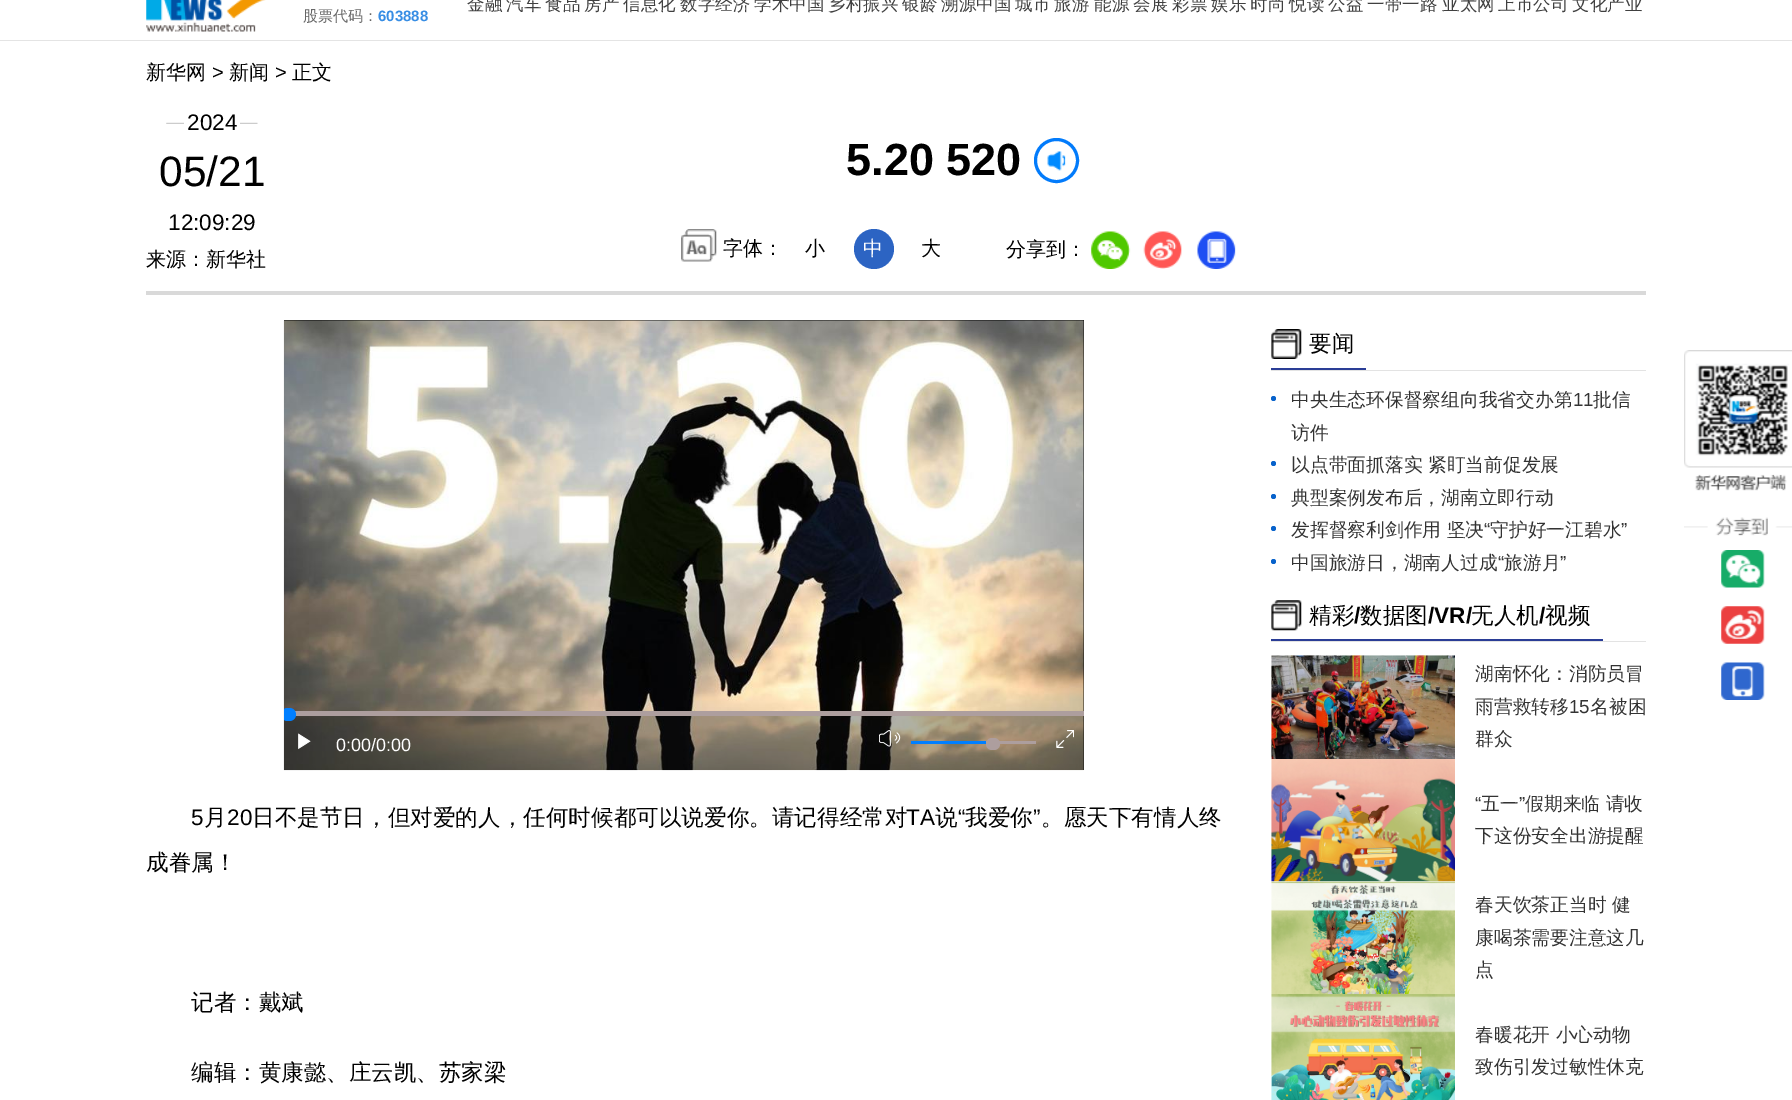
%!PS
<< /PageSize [1792 1100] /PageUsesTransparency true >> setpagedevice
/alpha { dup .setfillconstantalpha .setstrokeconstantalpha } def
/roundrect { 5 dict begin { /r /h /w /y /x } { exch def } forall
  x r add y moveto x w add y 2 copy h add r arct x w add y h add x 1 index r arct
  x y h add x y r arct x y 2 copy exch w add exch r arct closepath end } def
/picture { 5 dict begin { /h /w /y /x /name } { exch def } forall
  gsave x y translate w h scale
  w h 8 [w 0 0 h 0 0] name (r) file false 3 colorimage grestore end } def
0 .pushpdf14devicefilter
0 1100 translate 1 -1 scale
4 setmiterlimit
1 setgray
0 0 1792 1100 rectfill
0.894 setgray
0 40 1792 1 rectfill
(img1.rgb) 146 0 120 32 picture
/WenQuanYiZenHei-Medium [17.5 0 0 -17.5 0 0] selectfont
0.251 setgray
467 10 moveto (金融) show
506 10 moveto (汽车) show
545 10 moveto (食品) show
584 10 moveto (房产) show
623 10 moveto (信息化) show
680 10 moveto (数字经济) show
754 10 moveto (学术中国) show
828 10 moveto (乡村振兴) show
902 10 moveto (银龄) show
941 10 moveto (溯源中国) show
1015 10 moveto (城市) show
1054 10 moveto (旅游) show
1094 10 moveto (能源) show
1133 10 moveto (会展) show
1172 10 moveto (彩票) show
1211 10 moveto (娱乐) show
1250 10 moveto (时尚) show
1289 10 moveto (悦读) show
1328 10 moveto (公益) show
1367 10 moveto (一带一路) show
1442 10 moveto (亚太网) show
1498 10 moveto (上市公司) show
1572 10 moveto (文化产业) show
/WenQuanYiZenHei-Medium [15 0 0 -15 0 0] selectfont
0.4 setgray
303 21 moveto (股票代码：) show
/LiberationSans-Bold [15 0 0 -15 0 0] selectfont
0.216 0.553 0.894 setrgbcolor
378 21 moveto (603888) show
0.851 setgray
146 291 1500 4 rectfill
/WenQuanYiZenHei-Medium [20 0 0 -20 0 0] selectfont
0 setgray
146 79 moveto (新华网) show
/LiberationSans-Regular [20 0 0 -20 0 0] selectfont
212 79 moveto (>) show
/WenQuanYiZenHei-Medium [20 0 0 -20 0 0] selectfont
229 79 moveto (新闻) show
/LiberationSans-Regular [20 0 0 -20 0 0] selectfont
275 79 moveto (>) show
/WenQuanYiZenHei-Medium [20 0 0 -20 0 0] selectfont
292 79 moveto (正文) show
(img2.rgb) 166 122 92 2 picture
1 setgray
184 122 56 2 rectfill
/LiberationSans-Regular [22.5 0 0 -22.5 0 0] selectfont
0 setgray
187 130 moveto (2024) show
/LiberationSans-Regular [42.5 0 0 -42.5 0 0] selectfont
159 186 moveto (05/21) show
/LiberationSans-Regular [22.5 0 0 -22.5 0 0] selectfont
168 230 moveto (12:09:29) show
/LiberationSans-Bold [45 0 0 -45 0 0] selectfont
846 175 moveto (5.20 520) show
0.008 0.482 0.984 setrgbcolor
3 setlinewidth
newpath 1056.5 160.5 21 0 360 arc closepath stroke
(img3.rgb) 1047 151 19 20 picture
(img4.rgb) 681 229 36 33 picture
/WenQuanYiZenHei-Medium [20 0 0 -20 0 0] selectfont
0 setgray
723 255 moveto (字体：) show
805 255 moveto (小) show
0.173 0.392 0.765 setrgbcolor
newpath 874 249 20 0 360 arc closepath fill
1 setgray
863 255 moveto (中) show
0 setgray
921 255 moveto (大) show
1006 256 moveto (分享到：) show
(img5.rgb) 1091 231 40 38 picture
(img6.rgb) 1143 231 39 38 picture
(img7.rgb) 1197 231 39 38 picture
146 266 moveto (来源：新华社) show
284 320 800 450 rectfill
(img8.rgb) 283 320 801 451 picture
0.33 alpha
0.063 setgray
284 716 800 54 rectfill
1 alpha
0.678 0.62 0.62 setrgbcolor
295 711 789 5 rectfill
gsave
284 320 800 450 rectclip
0 0.498 1 setrgbcolor
281 708 15 13 6.5 roundrect fill
grestore
(img9.rgb) 298 733 13 17 picture
/LiberationSans-Regular [18 0 0 -18 0 0] selectfont
1 setgray
336 751 moveto (0:00/0:00) show
(img10.rgb) 879 730 22 17 picture
0.678 0.62 0.62 setrgbcolor
986 741 50 3 rectfill
0 0.498 1 setrgbcolor
911 741 75 3 rectfill
0.678 0.62 0.62 setrgbcolor
986 738 14 12 6 roundrect fill
(img11.rgb) 1056 730 18 18 picture
/LiberationSans-Regular [22.5 0 0 -22.5 0 0] selectfont
0 setgray
191 825 moveto 0.1 0 (5) ashow
/WenQuanYiZenHei-Medium [22.5 0 0 -22.5 0 0] selectfont
204 825 moveto 0.1 0 (月) ashow
/LiberationSans-Regular [22.5 0 0 -22.5 0 0] selectfont
227 825 moveto 0.1 0 (20) ashow
/WenQuanYiZenHei-Medium [22.5 0 0 -22.5 0 0] selectfont
252 825 moveto 0.1 0 (日不是节日，但对爱的人，任何时候都可以说爱你。请记得经常对) ashow
/LiberationSans-Regular [22.5 0 0 -22.5 0 0] selectfont
906 825 moveto 0.1 0 (TA) ashow
/WenQuanYiZenHei-Medium [22.5 0 0 -22.5 0 0] selectfont
935 825 moveto 0.1 0 (说) ashow
/LiberationSans-Regular [22.5 0 0 -22.5 0 0] selectfont
958 825 moveto 0.1 0 (“) ashow
/WenQuanYiZenHei-Medium [22.5 0 0 -22.5 0 0] selectfont
965 825 moveto 0.1 0 (我爱你) ashow
/LiberationSans-Regular [22.5 0 0 -22.5 0 0] selectfont
1033 825 moveto 0.1 0 (”) ashow
/WenQuanYiZenHei-Medium [22.5 0 0 -22.5 0 0] selectfont
1041 825 moveto 0.1 0 (。愿天下有情人终) ashow
146 870 moveto (成眷属！) show
191 1010 moveto (记者：戴斌) show
191 1080 moveto (编辑：黄康懿、庄云凯、苏家梁) show
0.89 setgray
1271 370 375 1 rectfill
(img12.rgb) 1271 329 31 30 picture
0.165 0.239 0.588 setrgbcolor
1271 368 95 2 rectfill
0 setgray
1309 351 moveto (要闻) show
0.027 0.384 0.796 setrgbcolor
newpath 1273.5 398.5 2.5 0 360 arc closepath fill
/WenQuanYiZenHei-Medium [18.75 0 0 -18.75 0 0] selectfont
0.2 setgray
1291 406 moveto (中央生态环保督察组向我省交办第) show
/LiberationSans-Regular [18.75 0 0 -18.75 0 0] selectfont
1573 406 moveto (11) show
/WenQuanYiZenHei-Medium [18.75 0 0 -18.75 0 0] selectfont
1593 406 moveto (批信) show
1291 439 moveto (访件) show
0.027 0.384 0.796 setrgbcolor
newpath 1273.5 463.5 2.5 0 360 arc closepath fill
0.2 setgray
1291 471 moveto (以点带面抓落实 紧盯当前促发展) show
0.027 0.384 0.796 setrgbcolor
newpath 1273.5 496.5 2.5 0 360 arc closepath fill
0.2 setgray
1291 504 moveto (典型案例发布后，湖南立即行动) show
1291 536 moveto (发挥督察利剑作用 坚决) show
/LiberationSans-Regular [18.75 0 0 -18.75 0 0] selectfont
1484 536 moveto (“) show
/WenQuanYiZenHei-Medium [18.75 0 0 -18.75 0 0] selectfont
1490 536 moveto (守护好一江碧水) show
/LiberationSans-Regular [18.75 0 0 -18.75 0 0] selectfont
1621 536 moveto (”) show
0.027 0.384 0.796 setrgbcolor
newpath 1273.5 528.5 2.5 0 360 arc closepath fill
/WenQuanYiZenHei-Medium [18.75 0 0 -18.75 0 0] selectfont
0.2 setgray
1291 569 moveto (中国旅游日，湖南人过成) show
/LiberationSans-Regular [18.75 0 0 -18.75 0 0] selectfont
1498 569 moveto (“) show
/WenQuanYiZenHei-Medium [18.75 0 0 -18.75 0 0] selectfont
1504 569 moveto (旅游月) show
/LiberationSans-Regular [18.75 0 0 -18.75 0 0] selectfont
1560 569 moveto (”) show
0.027 0.384 0.796 setrgbcolor
newpath 1273.5 561.5 2.5 0 360 arc closepath fill
0.89 setgray
1271 641 375 1 rectfill
(img13.rgb) 1271 600 31 31 picture
0.165 0.239 0.588 setrgbcolor
1271 639 332 2 rectfill
/WenQuanYiZenHei-Medium [22.5 0 0 -22.5 0 0] selectfont
0 setgray
1309 623 moveto (精彩) show
/LiberationSans-Bold [22.5 0 0 -22.5 0 0] selectfont
1354 623 moveto (/) show
/WenQuanYiZenHei-Medium [22.5 0 0 -22.5 0 0] selectfont
1360 623 moveto (数据图) show
/LiberationSans-Bold [22.5 0 0 -22.5 0 0] selectfont
1428 623 moveto (/VR/) show
/WenQuanYiZenHei-Medium [22.5 0 0 -22.5 0 0] selectfont
1471 623 moveto (无人机) show
/LiberationSans-Bold [22.5 0 0 -22.5 0 0] selectfont
1539 623 moveto (/) show
/WenQuanYiZenHei-Medium [22.5 0 0 -22.5 0 0] selectfont
1545 623 moveto (视频) show
(img14.rgb) 1271 655 184 104 picture
/WenQuanYiZenHei-Medium [18.75 0 0 -18.75 0 0] selectfont
0.2 setgray
1475 680 moveto (湖南怀化：消防员冒) show
1475 713 moveto (雨营救转移) show
/LiberationSans-Regular [18.75 0 0 -18.75 0 0] selectfont
1569 713 moveto (15) show
/WenQuanYiZenHei-Medium [18.75 0 0 -18.75 0 0] selectfont
1590 713 moveto (名被困) show
1475 745 moveto (群众) show
(img15.rgb) 1271 759 184 123 picture
/LiberationSans-Regular [18.75 0 0 -18.75 0 0] selectfont
1475 810 moveto (“) show
/WenQuanYiZenHei-Medium [18.75 0 0 -18.75 0 0] selectfont
1481 810 moveto (五一) show
/LiberationSans-Regular [18.75 0 0 -18.75 0 0] selectfont
1519 810 moveto (”) show
/WenQuanYiZenHei-Medium [18.75 0 0 -18.75 0 0] selectfont
1525 810 moveto (假期来临 请收) show
1475 842 moveto (下这份安全出游提醒) show
(img16.rgb) 1271 881 184 113 picture
1475 911 moveto (春天饮茶正当时 健) show
1475 944 moveto (康喝茶需要注意这几) show
1475 976 moveto (点) show
(img17.rgb) 1271 994 184 106 picture
1475 1041 moveto (春暖花开 小心动物) show
1475 1073 moveto (致伤引发过敏性休克) show
(img18.rgb) 1684 350 108 141 picture
(img19.rgb) 1684 517 108 19 picture
(img20.rgb) 1721 550 44 38 picture
(img21.rgb) 1721 606 44 38 picture
(img22.rgb) 1721 662 44 38 picture
.poppdf14devicefilter showpage
